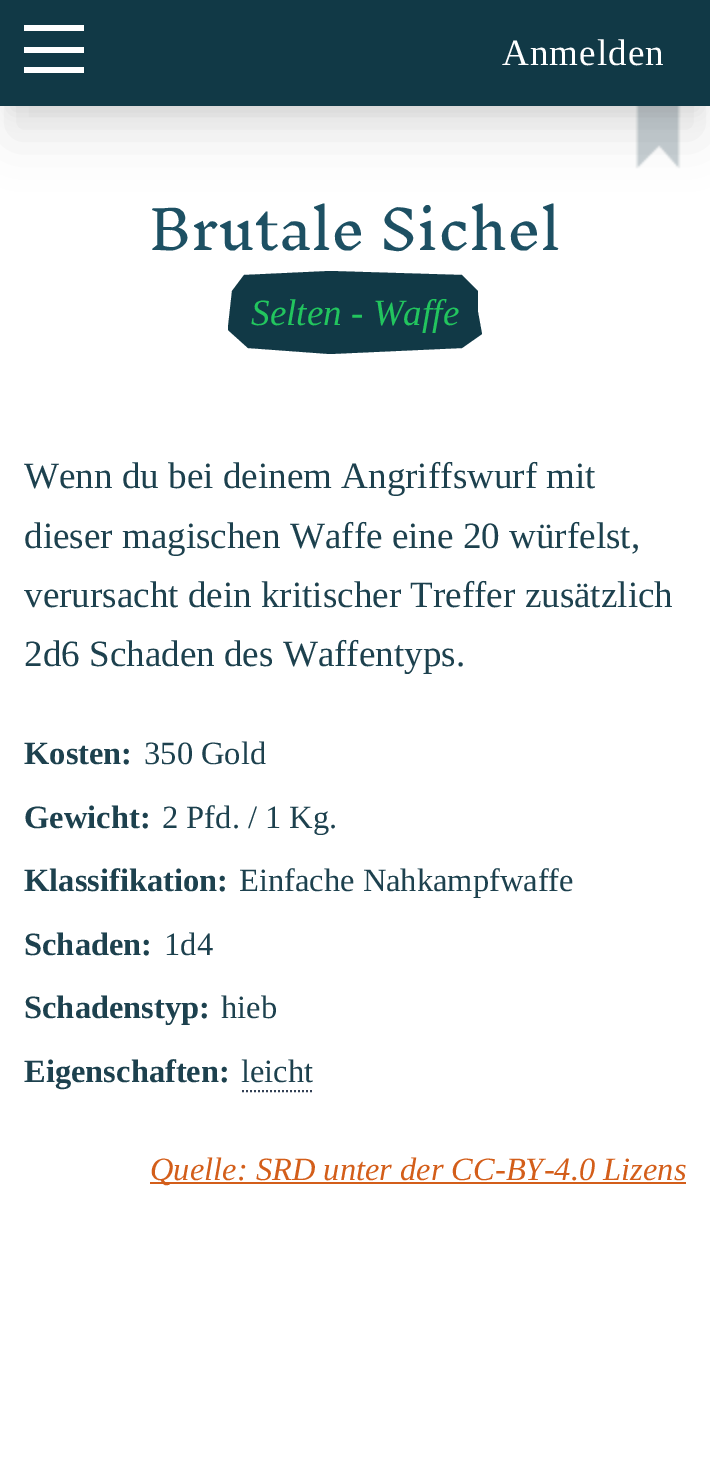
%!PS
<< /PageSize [710 1469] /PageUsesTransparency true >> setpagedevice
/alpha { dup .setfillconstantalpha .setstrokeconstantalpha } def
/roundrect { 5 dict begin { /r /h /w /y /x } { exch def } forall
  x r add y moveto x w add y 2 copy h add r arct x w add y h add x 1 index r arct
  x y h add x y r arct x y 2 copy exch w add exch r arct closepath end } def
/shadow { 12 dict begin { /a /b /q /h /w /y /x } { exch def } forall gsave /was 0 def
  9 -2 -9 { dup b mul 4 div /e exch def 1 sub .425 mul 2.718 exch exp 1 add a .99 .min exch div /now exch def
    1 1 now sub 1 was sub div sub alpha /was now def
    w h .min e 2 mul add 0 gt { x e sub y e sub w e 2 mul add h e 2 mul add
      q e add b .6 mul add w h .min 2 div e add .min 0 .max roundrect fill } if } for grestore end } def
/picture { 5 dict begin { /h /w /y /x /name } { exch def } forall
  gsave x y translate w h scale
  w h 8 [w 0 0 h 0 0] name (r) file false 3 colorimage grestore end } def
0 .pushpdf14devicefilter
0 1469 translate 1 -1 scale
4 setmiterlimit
1 setgray
0 0 710 1469 rectfill
(img1.rgb) 635 106 46 63 picture
0 setgray
12 28 686 82 0 10 0.1 shadow
10 50 690 86 0 25 0.1 shadow
0.067 0.224 0.275 setrgbcolor
0 0 710 106 rectfill
1 setgray
24 25 60 6 rectfill
24 47 60 6 rectfill
24 67 60 6 rectfill
/LiberationSerif-Regular [37.1 0 0 -37.1 0 0] selectfont
502 65 moveto 1 0 (Anmelden) ashow
/InknutAntiqua-Light [53.25 0 0 -53.25 0 0] selectfont
0.114 0.314 0.388 setrgbcolor
149 250 moveto (Brutale Sichel) show
0.067 0.224 0.275 setrgbcolor
newpath 232 291 moveto 244 275 lineto 330 271 lineto 462 275 lineto 478 291 lineto 478 312 lineto 482 334 lineto 462 348 lineto 330 354 lineto 248 348 lineto 228 330 lineto 228 327 lineto closepath fill
/LiberationSerif-Italic [37.1 0 0 -37.1 0 0] selectfont
0.133 0.773 0.369 setrgbcolor
251 325 moveto (Selten - Waffe) show
/LiberationSerif-Regular [37.1 0 0 -37.1 0 0] selectfont
0.114 0.255 0.306 setrgbcolor
24 488 moveto (Wenn du bei deinem Angriffswurf mit) show
24 548 moveto (dieser magischen Waffe eine 20 würfelst,) show
24 607 moveto (verursacht dein kritischer Treffer zusätzlich) show
24 666 moveto (2d6 Schaden des Waffentyps.) show
/LiberationSerif-Bold [32.5 0 0 -32.5 0 0] selectfont
24 764 moveto (Kosten:) show
/LiberationSerif-Regular [32.5 0 0 -32.5 0 0] selectfont
144 764 moveto (350 Gold) show
/LiberationSerif-Bold [32.5 0 0 -32.5 0 0] selectfont
24 828 moveto (Gewicht:) show
/LiberationSerif-Regular [32.5 0 0 -32.5 0 0] selectfont
162 828 moveto (2 Pfd. / 1 Kg.) show
/LiberationSerif-Bold [32.5 0 0 -32.5 0 0] selectfont
24 891 moveto (Klassifikation:) show
/LiberationSerif-Regular [32.5 0 0 -32.5 0 0] selectfont
239 891 moveto (Einfache Nahkampfwaffe) show
/LiberationSerif-Bold [32.5 0 0 -32.5 0 0] selectfont
24 955 moveto (Schaden:) show
/LiberationSerif-Regular [32.5 0 0 -32.5 0 0] selectfont
164 955 moveto (1d4) show
/LiberationSerif-Bold [32.5 0 0 -32.5 0 0] selectfont
24 1018 moveto (Schadenstyp:) show
/LiberationSerif-Regular [32.5 0 0 -32.5 0 0] selectfont
221 1018 moveto (hieb) show
/LiberationSerif-Bold [32.5 0 0 -32.5 0 0] selectfont
24 1082 moveto (Eigenschaften:) show
/LiberationSerif-Regular [32.5 0 0 -32.5 0 0] selectfont
241 1082 moveto (leicht) show
0.2 0.255 0.333 setrgbcolor
2 setlinewidth
[2 2] 0 setdash
newpath 242 1091 moveto 314 1091 lineto stroke
0.827 0.369 0.102 setrgbcolor
150 1182 536 2 rectfill
/LiberationSerif-Italic [32.5 0 0 -32.5 0 0] selectfont
150 1180 moveto (Quelle: SRD unter der CC-BY-4.0 Lizens) show
.poppdf14devicefilter showpage
